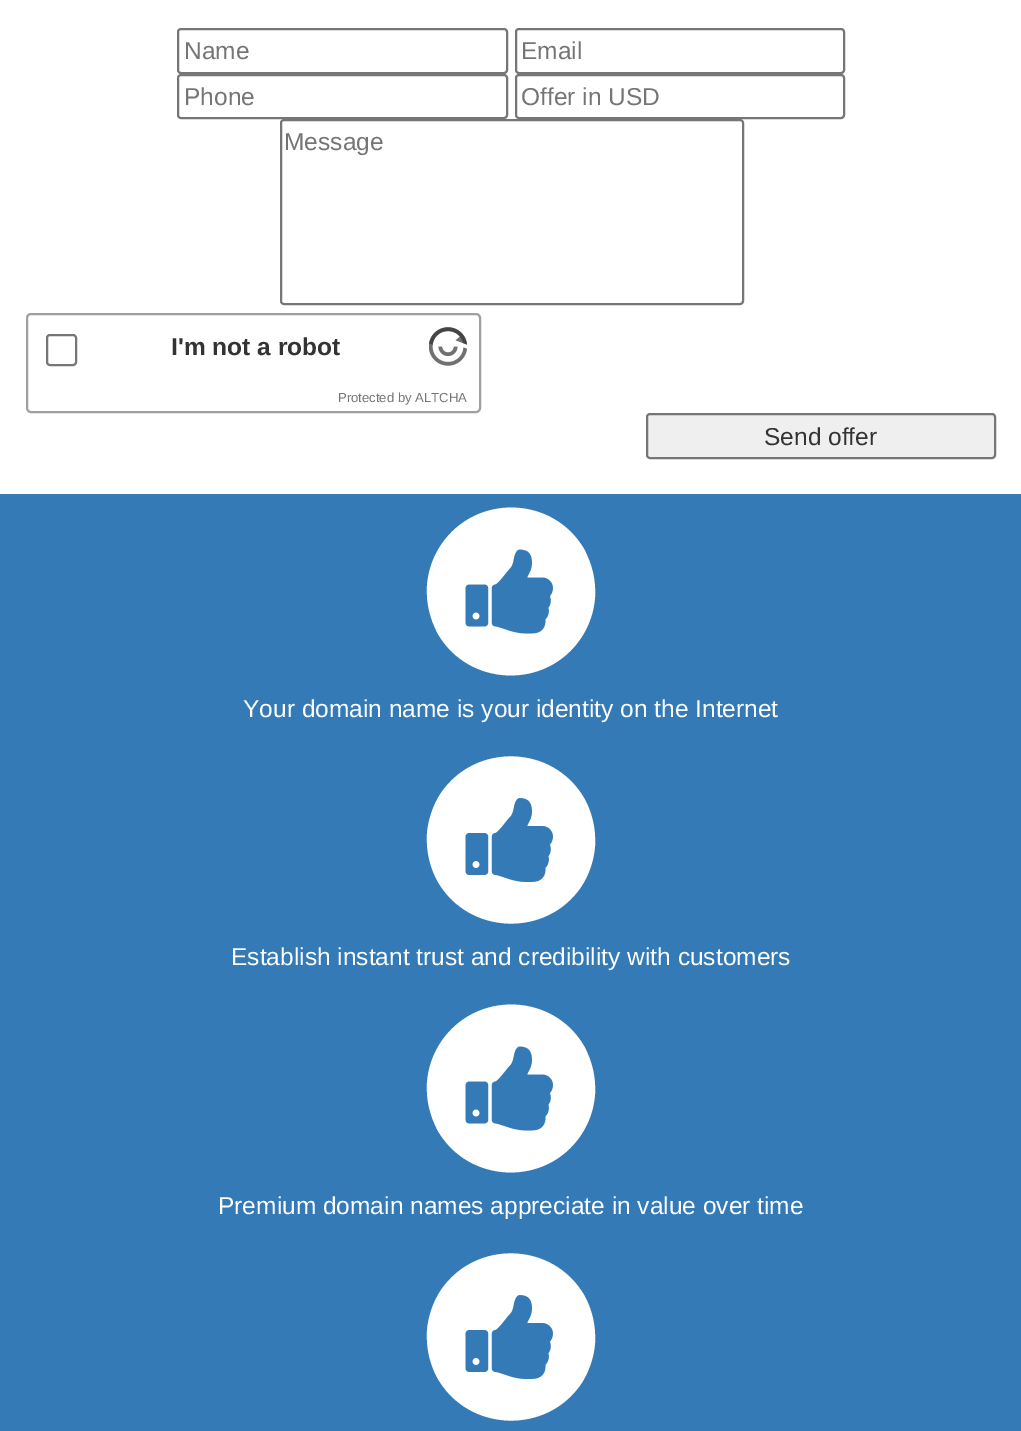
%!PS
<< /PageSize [1021 1431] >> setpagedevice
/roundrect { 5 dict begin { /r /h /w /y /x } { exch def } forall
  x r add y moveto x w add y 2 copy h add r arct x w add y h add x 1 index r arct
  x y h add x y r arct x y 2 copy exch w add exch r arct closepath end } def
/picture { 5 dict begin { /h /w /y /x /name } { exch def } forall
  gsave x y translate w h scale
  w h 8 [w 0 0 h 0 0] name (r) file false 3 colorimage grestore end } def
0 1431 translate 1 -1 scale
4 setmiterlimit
1 setgray
0 0 1021 1431 rectfill
0.463 setgray
2 setlinewidth
178 29 329 44 3 roundrect stroke
/LiberationSans-Regular [24.5 0 0 -24.5 0 0] selectfont
0.459 setgray
184 59 moveto (Name) show
0.463 setgray
516 29 328 44 3 roundrect stroke
0.459 setgray
521 59 moveto (Email) show
0.463 setgray
178 75 329 43 3 roundrect stroke
0.459 setgray
184 105 moveto (Phone) show
0.463 setgray
516 75 328 43 3 roundrect stroke
0.459 setgray
521 105 moveto (Offer in USD) show
0.463 setgray
281 120 462 184 3 roundrect stroke
0.459 setgray
284 150 moveto (Message) show
0.627 setgray
27 314 453 98 4 roundrect stroke
0.463 setgray
47 335 29 30 3 roundrect stroke
/LiberationSans-Bold [24.5 0 0 -24.5 0 0] selectfont
0.2 setgray
171 355 moveto (I'm not a robot) show
(img1.rgb) 429 327 38 39 picture
/LiberationSans-Regular [13.1 0 0 -13.1 0 0] selectfont
0.459 setgray
338 402 moveto (Protected by ALTCHA) show
0.937 setgray
647 414 348 44 3 roundrect gsave fill grestore
0.463 setgray
stroke
/LiberationSans-Regular [24.5 0 0 -24.5 0 0] selectfont
0.2 setgray
764 445 moveto (Send offer) show
0.2 0.478 0.718 setrgbcolor
0 494 1021 937 rectfill
1 setgray
newpath 584 549 moveto 592 564 596 580 595 597 curveto 594 612 589 626 581 638 curveto 546 690 469 687 438 634 curveto 430 619 426 603 427 586 curveto 428 571 433 557 441 545 curveto 476 493 553 496 584 549 curveto closepath fill
(img2.rgb) 465 549 88 85 picture
243 717 moveto (Your domain name is your identity on the Internet) show
newpath 584 798 moveto 592 812 596 829 595 846 curveto 594 860 589 875 581 887 curveto 546 938 469 935 438 882 curveto 430 868 426 851 427 834 curveto 428 820 433 805 441 793 curveto 476 742 553 745 584 798 curveto closepath fill
(img3.rgb) 465 798 88 84 picture
231 965 moveto (Establish instant trust and credibility with customers) show
newpath 584 1046 moveto 592 1061 596 1077 595 1094 curveto 594 1109 589 1123 581 1135 curveto 546 1187 469 1184 438 1131 curveto 430 1116 426 1100 427 1083 curveto 428 1068 433 1054 441 1042 curveto 476 990 553 993 584 1046 curveto closepath fill
(img2.rgb) 465 1046 88 85 picture
218 1214 moveto (Premium domain names appreciate in value over time) show
newpath 584 1295 moveto 592 1309 596 1326 595 1343 curveto 594 1357 589 1372 581 1384 curveto 546 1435 469 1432 438 1379 curveto 430 1365 426 1348 427 1331 curveto 428 1317 433 1302 441 1290 curveto 476 1239 553 1242 584 1295 curveto closepath fill
(img3.rgb) 465 1295 88 84 picture
showpage
